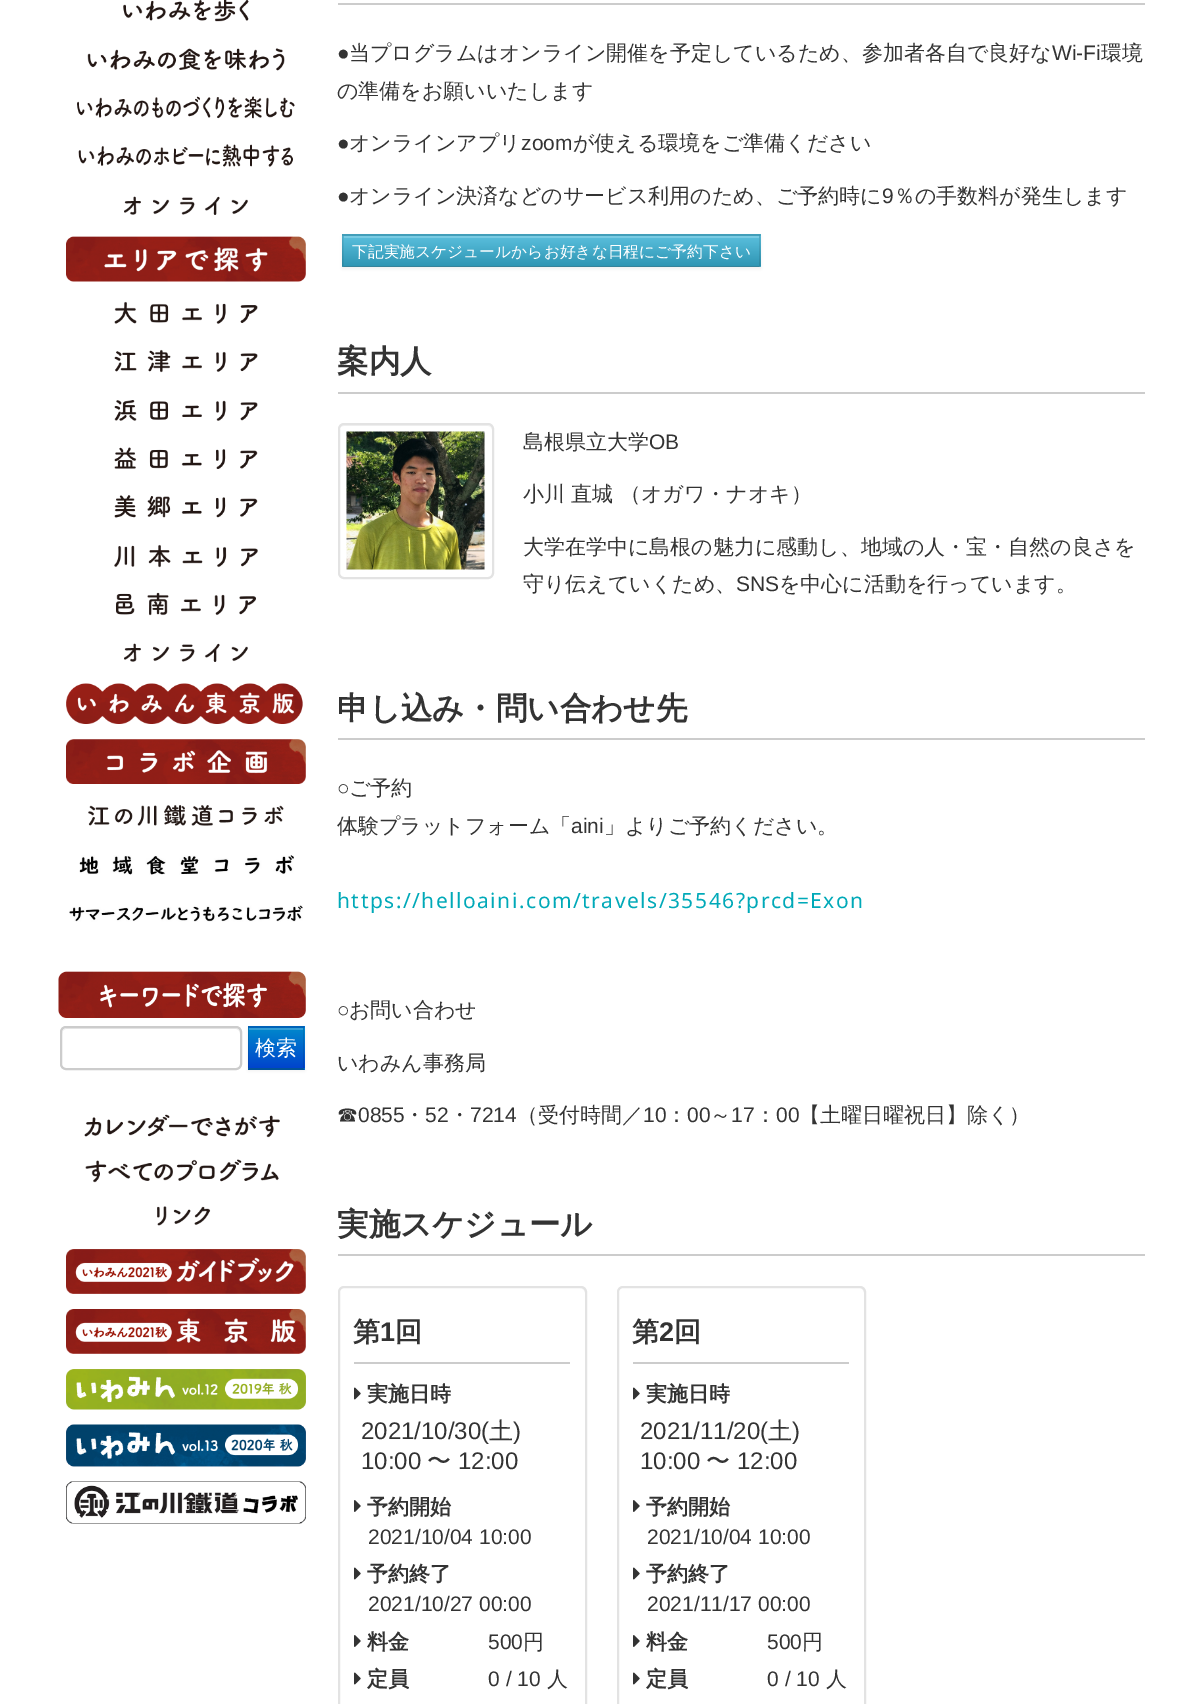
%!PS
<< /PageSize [1201 1704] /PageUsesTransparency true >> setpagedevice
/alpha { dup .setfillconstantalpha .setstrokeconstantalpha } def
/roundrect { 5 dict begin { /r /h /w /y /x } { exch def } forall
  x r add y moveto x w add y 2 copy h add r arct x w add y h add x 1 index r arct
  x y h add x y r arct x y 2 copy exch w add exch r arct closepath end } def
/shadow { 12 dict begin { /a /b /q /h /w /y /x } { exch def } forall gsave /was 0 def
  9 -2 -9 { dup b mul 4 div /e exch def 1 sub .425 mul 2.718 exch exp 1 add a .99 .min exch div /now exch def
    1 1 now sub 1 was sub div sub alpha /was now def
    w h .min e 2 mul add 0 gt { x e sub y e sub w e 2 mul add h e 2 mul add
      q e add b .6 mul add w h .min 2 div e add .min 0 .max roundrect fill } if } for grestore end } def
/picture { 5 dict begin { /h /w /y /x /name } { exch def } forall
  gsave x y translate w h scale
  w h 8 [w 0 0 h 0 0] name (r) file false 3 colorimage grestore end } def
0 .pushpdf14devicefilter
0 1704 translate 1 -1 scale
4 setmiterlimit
1 setgray
0 0 1201 1704 rectfill
(img1.rgb) 123 0 126 22 picture
(img2.rgb) 87 48 198 23 picture
(img3.rgb) 77 96 218 23 picture
(img4.rgb) 78 144 215 23 picture
(img5.rgb) 124 196 124 19 picture
(img6.rgb) 66 236 240 46 picture
(img7.rgb) 114 301 144 23 picture
(img8.rgb) 114 349 144 24 picture
(img9.rgb) 114 400 144 21 picture
(img10.rgb) 114 447 144 22 picture
(img11.rgb) 114 495 144 23 picture
(img12.rgb) 114 544 144 24 picture
(img13.rgb) 116 592 140 24 picture
(img5.rgb) 124 643 124 19 picture
(img14.rgb) 66 683 237 41 picture
(img15.rgb) 66 739 240 45 picture
(img16.rgb) 88 805 196 21 picture
(img17.rgb) 79 855 215 20 picture
(img18.rgb) 69 905 234 17 picture
(img19.rgb) 58 971 248 47 picture
0.925 setgray
newpath 66 1029 moveto 236 1029 lineto 238 1029 240 1031 240 1034 curveto 240 1031 239 1029 236 1028 curveto 95 1028 lineto 86 1028 63 1023 62 1033 curveto 62 1034 lineto 62 1031 64 1029 66 1029 curveto closepath fill
0.8 setgray
2 setlinewidth
61 1027 180 42 5 roundrect stroke
0 setgray
248 1028 57 43 0 1.5 0.05 shadow
0 0.427 0.8 setrgbcolor
248 1026 57 44 rectfill
gsave newpath 248 1028 moveto 305 1028 lineto 305 1068 lineto 248 1068 lineto closepath clip newpath
<< /ShadingType 2 /ColorSpace /DeviceRGB /Coords [276 1028 276 1068] /Extend [true true] /Function << /FunctionType 2 /Domain [0 1] /C0 [0 0.533 0.8] /C1 [0 0.267 0.8] /N 1 >> >> shfill grestore
0.2 0.62 0.839 setrgbcolor
249 1028 54 2 rectfill
0 0.384 0.722 setrgbcolor
newpath 248 1026 moveto 304 1026 lineto 303 1028 lineto 249 1028 lineto closepath fill
0.1 alpha
0 setgray
newpath 304 1026 moveto 304 1070 lineto 303 1068 lineto 303 1028 lineto closepath fill
0.25 alpha
newpath 304 1070 moveto 248 1070 lineto 249 1068 lineto 303 1068 lineto closepath fill
0.1 alpha
newpath 248 1070 moveto 248 1026 lineto 249 1028 lineto 249 1068 lineto closepath fill
/WenQuanYiZenHei-Medium [21 0 0 -21 0 0] selectfont
1 alpha
1 setgray
255 1055 moveto (検索) show
(img20.rgb) 84 1114 196 24 picture
(img21.rgb) 85 1159 194 24 picture
(img22.rgb) 157 1206 54 20 picture
(img23.rgb) 66 1249 240 45 picture
(img24.rgb) 66 1309 240 45 picture
(img25.rgb) 66 1369 240 41 picture
(img26.rgb) 66 1424 240 43 picture
(img27.rgb) 66 1481 240 43 picture
0.8 setgray
338 3 807 2 rectfill
/LiberationSans-Regular [21 0 0 -21 0 0] selectfont
0.2 setgray
337 60 moveto (●) show
/WenQuanYiZenHei-Medium [21 0 0 -21 0 0] selectfont
349 60 moveto (当プログラムはオンライン開催を予定しているため、参加者各自で良好な) show
/LiberationSans-Regular [21 0 0 -21 0 0] selectfont
1052 60 moveto (Wi-Fi) show
/WenQuanYiZenHei-Medium [21 0 0 -21 0 0] selectfont
1101 60 moveto (環境) show
337 98 moveto (の準備をお願いいたします) show
/LiberationSans-Regular [21 0 0 -21 0 0] selectfont
337 150 moveto (●) show
/WenQuanYiZenHei-Medium [21 0 0 -21 0 0] selectfont
349 150 moveto (オンラインアプリ) show
/LiberationSans-Regular [21 0 0 -21 0 0] selectfont
521 150 moveto (zoom) show
/WenQuanYiZenHei-Medium [21 0 0 -21 0 0] selectfont
573 150 moveto (が使える環境をご準備ください) show
/LiberationSans-Regular [21 0 0 -21 0 0] selectfont
337 203 moveto (●) show
/WenQuanYiZenHei-Medium [21 0 0 -21 0 0] selectfont
349 203 moveto (オンライン決済などのサービス利用のため、ご予約時に) show
/LiberationSans-Regular [21 0 0 -21 0 0] selectfont
882 203 moveto (9) show
/WenQuanYiZenHei-Medium [21 0 0 -21 0 0] selectfont
894 203 moveto (％の手数料が発生します) show
0 setgray
342 236 419 33 0 1.5 0.05 shadow
0.286 0.686 0.804 setrgbcolor
342 234 419 33 rectfill
gsave newpath 342 236 moveto 761 236 lineto 761 266 lineto 342 266 lineto closepath clip newpath
<< /ShadingType 2 /ColorSpace /DeviceRGB /Coords [551 235 551 266] /Extend [true true] /Function << /FunctionType 2 /Domain [0 1] /C0 [0.357 0.753 0.871] /C1 [0.184 0.588 0.706] /N 1 >> >> shfill grestore
0.475 0.796 0.89 setrgbcolor
344 236 415 2 rectfill
0.259 0.62 0.725 setrgbcolor
newpath 342 234 moveto 760 234 lineto 759 236 lineto 344 236 lineto closepath fill
0.1 alpha
0 setgray
newpath 760.5 234 moveto 760.5 267 lineto 759 265.5 lineto 759 235.5 lineto closepath fill
0.25 alpha
newpath 760 267 moveto 342 267 lineto 344 266 lineto 759 266 lineto closepath fill
0.1 alpha
newpath 342 267 moveto 342 234 lineto 343.5 235.5 lineto 343.5 265.5 lineto closepath fill
/WenQuanYiZenHei-Medium [15.75 0 0 -15.75 0 0] selectfont
1 alpha
1 setgray
352 257 moveto (下記実施スケジュールからお好きな日程にご予約下さい) show
0.8 setgray
338 392 807 2 rectfill
/WenQuanYiZenHei-Bold [31.5 0 0 -31.5 0 0] selectfont
0.2 setgray
337 372 moveto (案内人) show
0.949 setgray
newpath 344 426 moveto 488 426 lineto 490 426 492 428 492 430 curveto 492 427 490 425 487 425 curveto 344 425 lineto 341 425 339 427 339 430 curveto 339 428 341 426 344 426 curveto closepath fill
0.89 setgray
339 424 154 154 5 roundrect stroke
(img28.rgb) 346 431 139 139 picture
/WenQuanYiZenHei-Medium [21 0 0 -21 0 0] selectfont
0.2 setgray
523 449 moveto (島根県立大学) show
/LiberationSans-Regular [21 0 0 -21 0 0] selectfont
649 449 moveto (OB) show
/WenQuanYiZenHei-Medium [21 0 0 -21 0 0] selectfont
523 501 moveto (小川 直城 （オガワ・ナオキ）) show
523 554 moveto (大学在学中に島根の魅力に感動し、地域の人・宝・自然の良さを) show
523 591 moveto (守り伝えていくため、) show
/LiberationSans-Regular [21 0 0 -21 0 0] selectfont
736 591 moveto (SNS) show
/WenQuanYiZenHei-Medium [21 0 0 -21 0 0] selectfont
779 591 moveto (を中心に活動を行っています。) show
0.8 setgray
338 738 807 2 rectfill
/WenQuanYiZenHei-Bold [31.5 0 0 -31.5 0 0] selectfont
0.2 setgray
337 719 moveto (申し込み・問い合わせ先) show
/LiberationSans-Regular [21 0 0 -21 0 0] selectfont
337 795 moveto (○) show
/WenQuanYiZenHei-Medium [21 0 0 -21 0 0] selectfont
349 795 moveto (ご予約) show
337 833 moveto (体験プラットフォーム「) show
/LiberationSans-Regular [21 0 0 -21 0 0] selectfont
571 833 moveto (aini) show
/WenQuanYiZenHei-Medium [21 0 0 -21 0 0] selectfont
604 833 moveto (」よりご予約ください。) show
/NotoSans-Regular [21 0 0 -21 0 0] selectfont
0 0.663 0.722 setrgbcolor
337 908 moveto 1.5 0 (https://helloaini.com/travels/35546?prcd=Exon) ashow
/LiberationSans-Regular [21 0 0 -21 0 0] selectfont
0.2 setgray
337 1017 moveto (○) show
/WenQuanYiZenHei-Medium [21 0 0 -21 0 0] selectfont
349 1017 moveto (お問い合わせ) show
337 1070 moveto (いわみん事務局) show
337 1122 moveto (☎) show
/LiberationSans-Regular [21 0 0 -21 0 0] selectfont
358 1122 moveto (0855) show
/WenQuanYiZenHei-Medium [21 0 0 -21 0 0] selectfont
404 1122 moveto (・) show
/LiberationSans-Regular [21 0 0 -21 0 0] selectfont
425 1122 moveto (52) show
/WenQuanYiZenHei-Medium [21 0 0 -21 0 0] selectfont
449 1122 moveto (・) show
/LiberationSans-Regular [21 0 0 -21 0 0] selectfont
470 1122 moveto (7214) show
/WenQuanYiZenHei-Medium [21 0 0 -21 0 0] selectfont
517 1122 moveto (（受付時間／) show
/LiberationSans-Regular [21 0 0 -21 0 0] selectfont
643 1122 moveto (10) show
/WenQuanYiZenHei-Medium [21 0 0 -21 0 0] selectfont
666 1122 moveto (：) show
/LiberationSans-Regular [21 0 0 -21 0 0] selectfont
687 1122 moveto (00) show
/WenQuanYiZenHei-Medium [21 0 0 -21 0 0] selectfont
710 1122 moveto (～) show
/LiberationSans-Regular [21 0 0 -21 0 0] selectfont
731 1122 moveto (17) show
/WenQuanYiZenHei-Medium [21 0 0 -21 0 0] selectfont
755 1122 moveto (：) show
/LiberationSans-Regular [21 0 0 -21 0 0] selectfont
776 1122 moveto (00) show
/WenQuanYiZenHei-Medium [21 0 0 -21 0 0] selectfont
799 1122 moveto (【土曜日曜祝日】除く）) show
0.8 setgray
338 1254 807 2 rectfill
/WenQuanYiZenHei-Bold [31.5 0 0 -31.5 0 0] selectfont
0.2 setgray
337 1235 moveto (実施スケジュール) show
0.949 setgray
newpath 344 1288 moveto 580 1288 lineto 583 1288 585 1291 585 1293 curveto 585 1292 lineto 585 1289 583 1287 580 1287 curveto 344 1287 lineto 341 1287 339 1289 339 1292 curveto 339 1293 lineto 339 1291 341 1288 344 1288 curveto closepath fill
0.89 setgray
339 1287 247 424 5 roundrect stroke
0.8 setgray
354 1362 216 2 rectfill
/WenQuanYiZenHei-Bold [27 0 0 -27 0 0] selectfont
0.2 setgray
353 1341 moveto (第) show
/LiberationSans-Bold [27 0 0 -27 0 0] selectfont
380 1341 moveto (1) show
/WenQuanYiZenHei-Bold [27 0 0 -27 0 0] selectfont
395 1341 moveto (回) show
(img29.rgb) 354 1387 7 13 picture
/WenQuanYiZenHei-Bold [21 0 0 -21 0 0] selectfont
367 1401 moveto (実施日時) show
/LiberationSans-Regular [24 0 0 -24 0 0] selectfont
361 1439 moveto (2021/10/30\() show
/WenQuanYiZenHei-Medium [24 0 0 -24 0 0] selectfont
489 1439 moveto (土) show
/LiberationSans-Regular [24 0 0 -24 0 0] selectfont
513 1439 moveto (\)) show
361 1469 moveto (10:00) show
/WenQuanYiZenHei-Medium [24 0 0 -24 0 0] selectfont
427 1469 moveto (〜) show
/LiberationSans-Regular [24 0 0 -24 0 0] selectfont
458 1469 moveto (12:00) show
(img30.rgb) 354 1500 7 12 picture
/WenQuanYiZenHei-Bold [21 0 0 -21 0 0] selectfont
367 1514 moveto (予約開始) show
/LiberationSans-Regular [21 0 0 -21 0 0] selectfont
368 1544 moveto (2021/10/04 10:00) show
(img29.rgb) 354 1567 7 13 picture
/WenQuanYiZenHei-Bold [21 0 0 -21 0 0] selectfont
367 1581 moveto (予約終了) show
/LiberationSans-Regular [21 0 0 -21 0 0] selectfont
368 1611 moveto (2021/10/27 00:00) show
(img30.rgb) 354 1635 7 12 picture
/WenQuanYiZenHei-Bold [21 0 0 -21 0 0] selectfont
367 1649 moveto (料金) show
/LiberationSans-Regular [21 0 0 -21 0 0] selectfont
488 1649 moveto (500) show
/WenQuanYiZenHei-Medium [21 0 0 -21 0 0] selectfont
523 1649 moveto (円) show
(img29.rgb) 354 1672 7 13 picture
/WenQuanYiZenHei-Bold [21 0 0 -21 0 0] selectfont
367 1686 moveto (定員) show
/LiberationSans-Regular [21 0 0 -21 0 0] selectfont
488 1686 moveto (0 / 10) show
/WenQuanYiZenHei-Medium [21 0 0 -21 0 0] selectfont
547 1686 moveto (人) show
0.949 setgray
newpath 622 1288 moveto 860 1288 lineto 862 1288 864 1291 864 1293 curveto 864 1292 lineto 864 1289 862 1287 859 1287 curveto 623 1287 lineto 620 1287 618 1289 618 1292 curveto 618 1293 lineto 618 1291 620 1288 622 1288 curveto closepath fill
0.89 setgray
618 1287 247 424 5 roundrect stroke
0.8 setgray
633 1362 216 2 rectfill
/WenQuanYiZenHei-Bold [27 0 0 -27 0 0] selectfont
0.2 setgray
632 1341 moveto (第) show
/LiberationSans-Bold [27 0 0 -27 0 0] selectfont
659 1341 moveto (2) show
/WenQuanYiZenHei-Bold [27 0 0 -27 0 0] selectfont
674 1341 moveto (回) show
(img29.rgb) 633 1387 7 13 picture
/WenQuanYiZenHei-Bold [21 0 0 -21 0 0] selectfont
646 1401 moveto (実施日時) show
/LiberationSans-Regular [24 0 0 -24 0 0] selectfont
640 1439 moveto (2021/11/20\() show
/WenQuanYiZenHei-Medium [24 0 0 -24 0 0] selectfont
768 1439 moveto (土) show
/LiberationSans-Regular [24 0 0 -24 0 0] selectfont
792 1439 moveto (\)) show
640 1469 moveto (10:00) show
/WenQuanYiZenHei-Medium [24 0 0 -24 0 0] selectfont
706 1469 moveto (〜) show
/LiberationSans-Regular [24 0 0 -24 0 0] selectfont
737 1469 moveto (12:00) show
(img30.rgb) 633 1500 7 12 picture
/WenQuanYiZenHei-Bold [21 0 0 -21 0 0] selectfont
646 1514 moveto (予約開始) show
/LiberationSans-Regular [21 0 0 -21 0 0] selectfont
647 1544 moveto (2021/10/04 10:00) show
(img29.rgb) 633 1567 7 13 picture
/WenQuanYiZenHei-Bold [21 0 0 -21 0 0] selectfont
646 1581 moveto (予約終了) show
/LiberationSans-Regular [21 0 0 -21 0 0] selectfont
647 1611 moveto (2021/11/17 00:00) show
(img30.rgb) 633 1635 7 12 picture
/WenQuanYiZenHei-Bold [21 0 0 -21 0 0] selectfont
646 1649 moveto (料金) show
/LiberationSans-Regular [21 0 0 -21 0 0] selectfont
767 1649 moveto (500) show
/WenQuanYiZenHei-Medium [21 0 0 -21 0 0] selectfont
802 1649 moveto (円) show
(img29.rgb) 633 1672 7 13 picture
/WenQuanYiZenHei-Bold [21 0 0 -21 0 0] selectfont
646 1686 moveto (定員) show
/LiberationSans-Regular [21 0 0 -21 0 0] selectfont
767 1686 moveto (0 / 10) show
/WenQuanYiZenHei-Medium [21 0 0 -21 0 0] selectfont
826 1686 moveto (人) show
.poppdf14devicefilter showpage
